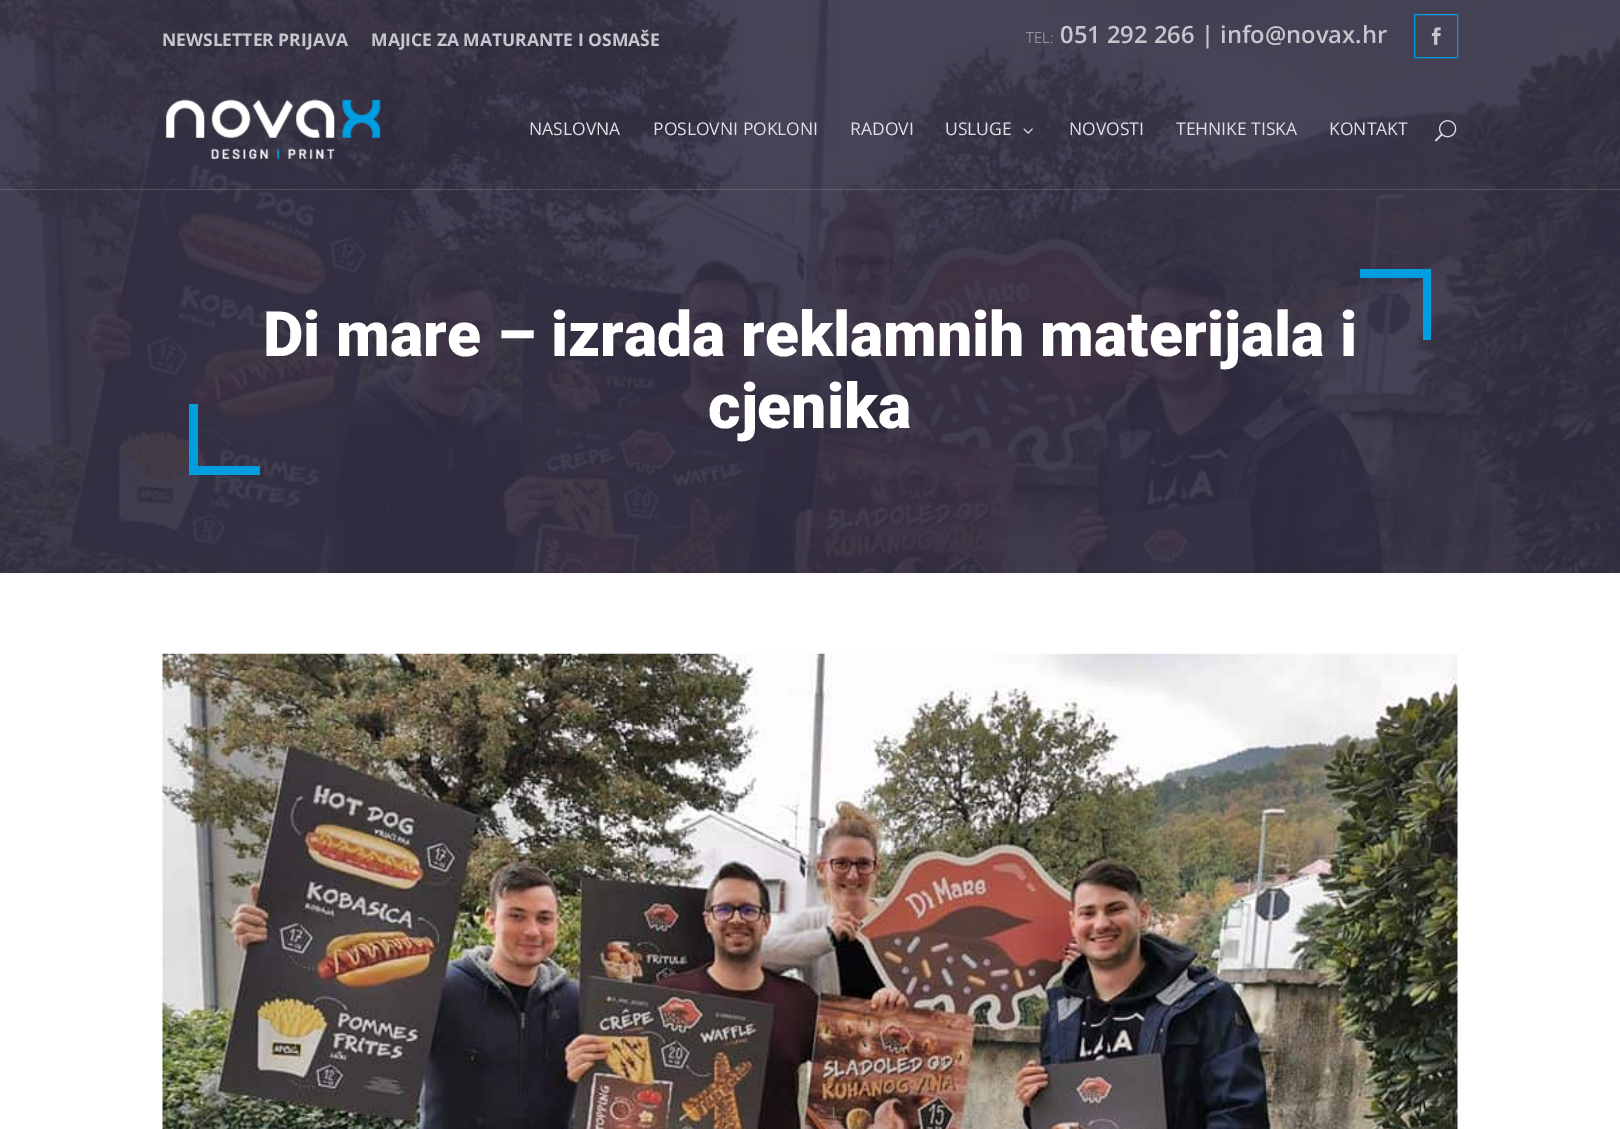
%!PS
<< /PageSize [1620 1129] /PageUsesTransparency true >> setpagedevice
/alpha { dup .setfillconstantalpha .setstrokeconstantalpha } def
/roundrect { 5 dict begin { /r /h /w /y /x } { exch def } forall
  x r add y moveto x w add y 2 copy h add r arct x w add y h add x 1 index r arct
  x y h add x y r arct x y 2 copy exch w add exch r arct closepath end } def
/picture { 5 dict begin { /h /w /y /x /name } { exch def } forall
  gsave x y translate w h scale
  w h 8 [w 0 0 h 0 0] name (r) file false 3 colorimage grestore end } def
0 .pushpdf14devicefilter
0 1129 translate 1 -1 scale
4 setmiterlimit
1 setgray
0 0 1620 1129 rectfill
(img5.rgb) 0 0 1620 573 picture
/OpenSans-Bold [17.5 0 0 -17.5 0 0] selectfont
0.78 0.776 0.8 setrgbcolor
162 46 moveto (NEWSLETTER PRIJAVA) show
371 46 moveto (MAJICE ZA MATURANTE I OSMAŠE) show
/OpenSans-Light [15 0 0 -15 0 0] selectfont
0.706 0.702 0.733 setrgbcolor
1026 43 moveto (TEL:) show
/OpenSans-SemiBold [23.75 0 0 -23.75 0 0] selectfont
0.78 0.776 0.8 setrgbcolor
1060 43 moveto (051 292 266 | info@novax.hr) show
0 0.62 0.878 setrgbcolor
1414.5 14.5 43 43 0.5 roundrect stroke
(img1.rgb) 1431 27 10 18 picture
0.15 alpha
1 setgray
0 189 1620 1 rectfill
1 alpha
(img2.rgb) 166 99 215 60 picture
/OpenSans-Regular [17.5 0 0 -17.5 0 0] selectfont
0.882 0.878 0.89 setrgbcolor
529 135 moveto (NASLOVNA) show
653 135 moveto (POSLOVNI POKLONI) show
850 135 moveto (RADOVI) show
945 135 moveto (USLUGE) show
(img3.rgb) 1023 128 10 6 picture
1069 135 moveto (NOVOSTI) show
1176 135 moveto (TEHNIKE TISKA) show
1329 135 moveto (KONTAKT) show
(img4.rgb) 1435 120 22 22 picture
/Roboto-Black [62.5 0 0 -62.5 0 0] selectfont
1 setgray
263 356 moveto (Di mare – izrada reklamnih materijala i) show
0 0.62 0.878 setrgbcolor
1360 269 63 9 rectfill
1423 269 8 71 rectfill
198 466 62 9 rectfill
189 404 9 71 rectfill
1 setgray
708 428 moveto (cjenika) show
(img6.rgb) 162 653 1296 476 picture
.poppdf14devicefilter showpage
